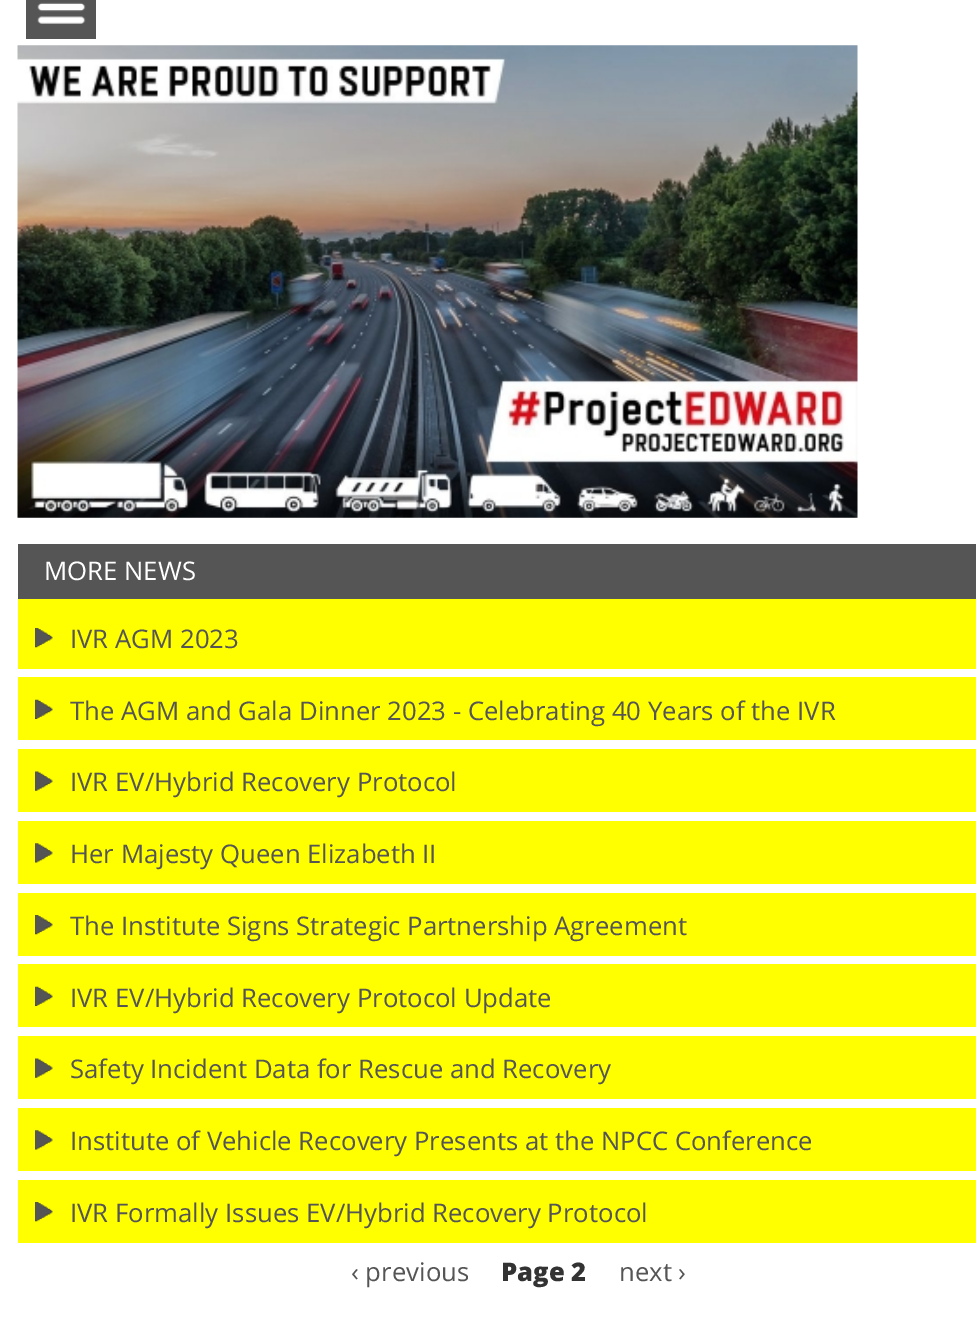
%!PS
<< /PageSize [976 1330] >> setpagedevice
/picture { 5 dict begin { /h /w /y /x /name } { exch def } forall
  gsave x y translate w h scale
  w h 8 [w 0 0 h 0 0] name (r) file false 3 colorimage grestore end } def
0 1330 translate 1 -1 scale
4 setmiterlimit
1 setgray
0 0 976 1330 rectfill
0.333 setgray
26 0 70 39 rectfill
(img1.rgb) 37 2 49 22 picture
(img2.rgb) 17 45 841 473 picture
18 544 958 55 rectfill
1 1 0 setrgbcolor
18 599 958 70 rectfill
/OpenSans-Regular [25.7 0 0 -25.7 0 0] selectfont
1 setgray
44 580 moveto (MORE NEWS) show
(img3.rgb) 35 628 18 20 picture
0.333 setgray
70 648 moveto (IVR AGM 2023) show
1 1 0 setrgbcolor
18 677 958 63 rectfill
(img4.rgb) 35 699 18 20 picture
0.333 setgray
70 720 moveto (The AGM and Gala Dinner 2023 - Celebrating 40 Years of the IVR) show
1 1 0 setrgbcolor
18 749 958 63 rectfill
(img5.rgb) 35 771 18 20 picture
0.333 setgray
70 791 moveto (IVR EV/Hybrid Recovery Protocol) show
1 1 0 setrgbcolor
18 821 958 63 rectfill
(img6.rgb) 35 843 18 20 picture
0.333 setgray
70 863 moveto (Her Majesty Queen Elizabeth II) show
1 1 0 setrgbcolor
18 893 958 63 rectfill
(img3.rgb) 35 915 18 20 picture
0.333 setgray
70 935 moveto (The Institute Signs Strategic Partnership Agreement) show
1 1 0 setrgbcolor
18 964 958 63 rectfill
(img4.rgb) 35 986 18 20 picture
0.333 setgray
70 1007 moveto (IVR EV/Hybrid Recovery Protocol Update) show
1 1 0 setrgbcolor
18 1036 958 63 rectfill
(img5.rgb) 35 1058 18 20 picture
0.333 setgray
70 1078 moveto (Safety Incident Data for Rescue and Recovery) show
1 1 0 setrgbcolor
18 1108 958 63 rectfill
(img6.rgb) 35 1130 18 20 picture
0.333 setgray
70 1150 moveto (Institute of Vehicle Recovery Presents at the NPCC Conference) show
1 1 0 setrgbcolor
18 1180 958 63 rectfill
(img3.rgb) 35 1202 18 20 picture
0.333 setgray
70 1222 moveto (IVR Formally Issues EV/Hybrid Recovery Protocol) show
351 1281 moveto (‹ previous) show
/OpenSans-ExtraBold [25.7 0 0 -25.7 0 0] selectfont
0.2 setgray
501 1281 moveto (Page 2) show
/OpenSans-Regular [25.7 0 0 -25.7 0 0] selectfont
0.333 setgray
619 1281 moveto (next ›) show
showpage
